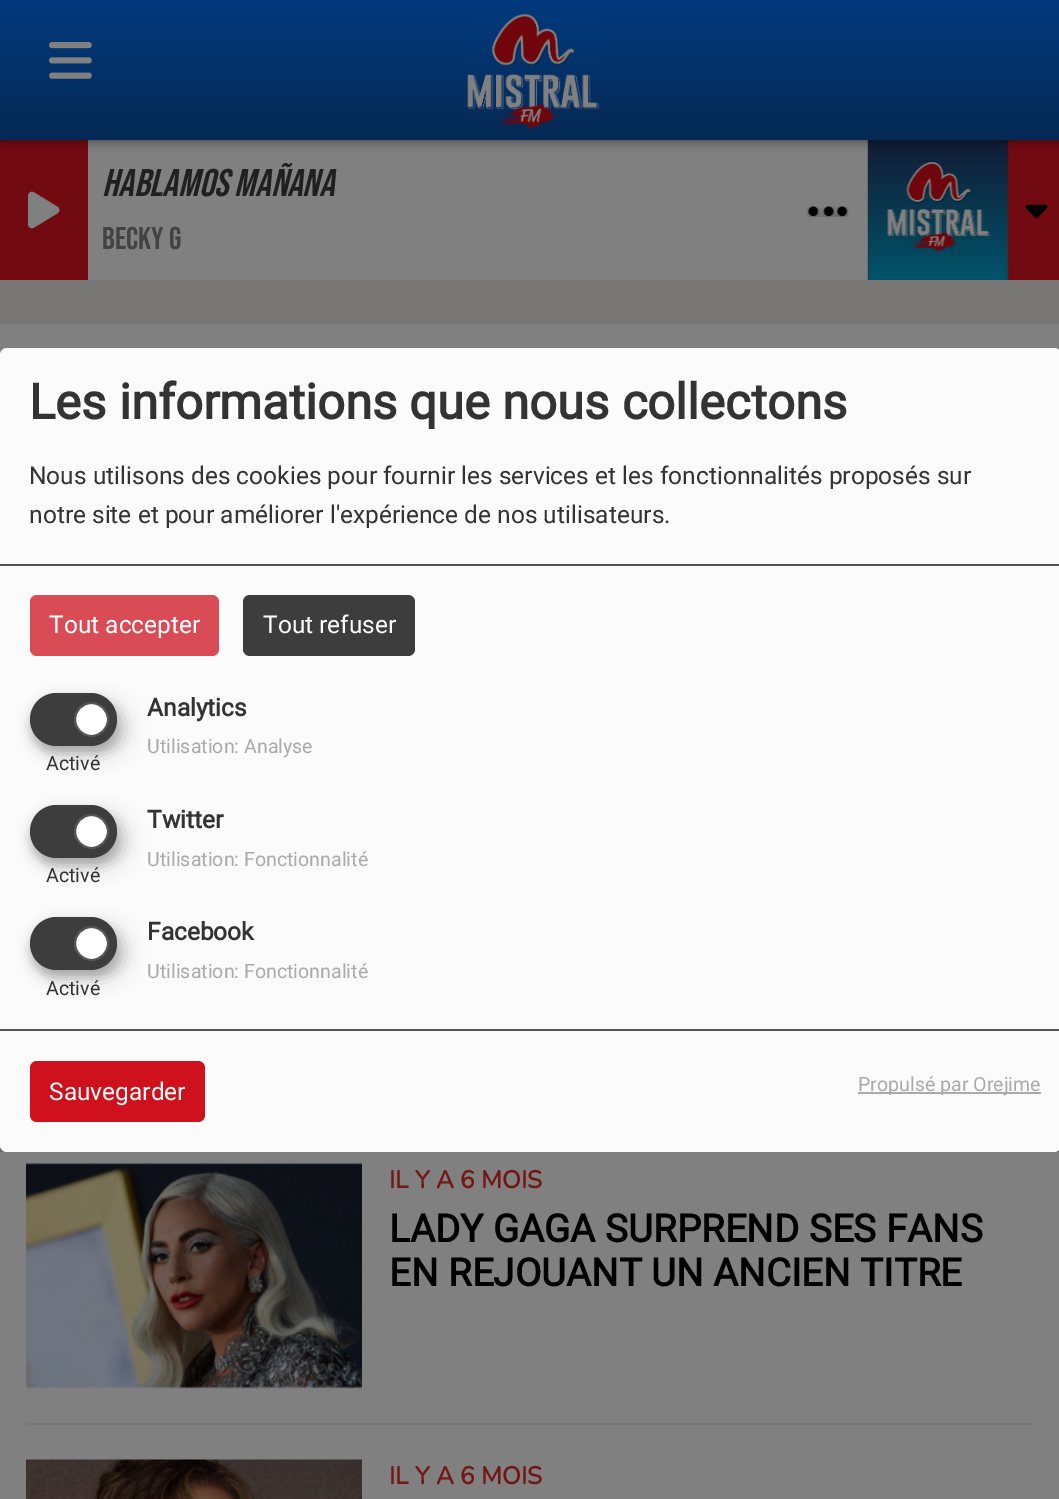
%!PS
<< /PageSize [1059 1499] /PageUsesTransparency true >> setpagedevice
/alpha { dup .setfillconstantalpha .setstrokeconstantalpha } def
/roundrect { 5 dict begin { /r /h /w /y /x } { exch def } forall
  x r add y moveto x w add y 2 copy h add r arct x w add y h add x 1 index r arct
  x y h add x y r arct x y 2 copy exch w add exch r arct closepath end } def
/shadow { 12 dict begin { /a /b /q /h /w /y /x } { exch def } forall gsave /was 0 def
  9 -2 -9 { dup b mul 4 div /e exch def 1 sub .425 mul 2.718 exch exp 1 add a .99 .min exch div /now exch def
    1 1 now sub 1 was sub div sub alpha /was now def
    w h .min e 2 mul add 0 gt { x e sub y e sub w e 2 mul add h e 2 mul add
      q e add b .6 mul add w h .min 2 div e add .min 0 .max roundrect fill } if } for grestore end } def
/picture { 5 dict begin { /h /w /y /x /name } { exch def } forall
  gsave x y translate w h scale
  w h 8 [w 0 0 h 0 0] name (r) file false 3 colorimage grestore end } def
0 .pushpdf14devicefilter
0 1499 translate 1 -1 scale
4 setmiterlimit
0.471 0.459 0.459 setrgbcolor
0 0 1059 1499 rectfill
0.502 setgray
88 140 780 140 rectfill
0.447 0.039 0.067 setrgbcolor
0 140 88 140 rectfill
868 140 191 140 rectfill
(img5.rgb) 867 140 142 140 picture
0.1 alpha
0.502 setgray
867 142 1 138 rectfill
1 alpha
0 setgray
0 2 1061 140 0 4.5 0.4 shadow
gsave newpath 0 0 moveto 1059 0 lineto 1059 140 lineto 0 140 lineto closepath clip newpath
<< /ShadingType 2 /ColorSpace /DeviceRGB /Coords [530 0 530 140] /Extend [true true] /Function << /FunctionType 2 /Domain [0 1] /C0 [0.008 0.227 0.494] /C1 [0.02 0.161 0.329] /N 1 >> >> shfill grestore
(img1.rgb) 49 42 43 37 picture
(img2.rgb) 467 13 133 116 picture
(img3.rgb) 28 191 32 38 picture
/BebasNeue-Italic [38.5 0 0 -38.5 0 0] selectfont
0.125 setgray
102 196 moveto (HABLAMOS MAÑANA) show
/BebasNeue-Regular [31.5 0 0 -31.5 0 0] selectfont
0.263 setgray
102 249 moveto (BECKY G) show
(img4.rgb) 806 206 43 11 picture
(img6.rgb) 1025 204 23 14 picture
0.502 setgray
0 324 1059 31 rectfill
0 1145 1059 354 rectfill
(img7.rgb) 26 1163 336 226 picture
gsave
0 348 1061 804 rectclip
0 setgray
9 357 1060 803 7 9 0.19 shadow
0 355 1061 804 7 5 0.2 shadow
grestore
0.984 setgray
0 348 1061 804 7 roundrect fill
0.333 setgray
0 564 1059 2 rectfill
/Roboto-Bold [49 0 0 -49 0 0] selectfont
0.2 setgray
29 419 moveto (Les informations que nous collectons) show
/Roboto-Regular [24.5 0 0 -24.5 0 0] selectfont
29 484 moveto (Nous utilisons des cookies pour fournir les services et les fonctionnalités proposés sur) show
29 523 moveto (notre site et pour améliorer l'expérience de nos utilisateurs.) show
0.855 0.298 0.333 setrgbcolor
30 595 189 61 7 roundrect fill
1 setgray
49 633 moveto (Tout accepter) show
0.243 0.239 0.239 setrgbcolor
243 595 172 61 7 roundrect fill
1 setgray
263 633 moveto (Tout refuser) show
/Roboto-Bold [24.5 0 0 -24.5 0 0] selectfont
0.2 setgray
147 716 moveto (Analytics) show
0 setgray
39 702 87 52 26 9 0.19 shadow
30 700 87 53 26.5 5 0.2 shadow
0.243 0.239 0.239 setrgbcolor
30 693 87 53 26.5 roundrect fill
1 setgray
newpath 91.5 719.5 16.5 0 360 arc closepath gsave fill grestore
0.333 setgray
2 setlinewidth
stroke
/Roboto-Regular [19.6 0 0 -19.6 0 0] selectfont
0.2 setgray
46 770 moveto (Activé) show
0.667 setgray
147 753 moveto (Utilisation: Analyse) show
/Roboto-Bold [24.5 0 0 -24.5 0 0] selectfont
0.2 setgray
147 828 moveto (Twitter) show
0 setgray
39 814 87 52 26 9 0.19 shadow
30 812 87 53 26.5 5 0.2 shadow
0.243 0.239 0.239 setrgbcolor
30 805 87 53 26.5 roundrect fill
1 setgray
newpath 91.5 831.5 16.5 0 360 arc closepath gsave fill grestore
0.333 setgray
stroke
/Roboto-Regular [19.6 0 0 -19.6 0 0] selectfont
0.2 setgray
46 882 moveto (Activé) show
0.667 setgray
147 866 moveto (Utilisation: Fonctionnalité) show
/Roboto-Bold [24.5 0 0 -24.5 0 0] selectfont
0.2 setgray
147 940 moveto (Facebook) show
0 setgray
39 926 87 52 26 9 0.19 shadow
30 924 87 53 26.5 5 0.2 shadow
0.243 0.239 0.239 setrgbcolor
30 917 87 53 26.5 roundrect fill
1 setgray
newpath 91.5 943.5 16.5 0 360 arc closepath gsave fill grestore
0.333 setgray
stroke
/Roboto-Regular [19.6 0 0 -19.6 0 0] selectfont
0.2 setgray
46 995 moveto (Activé) show
0.667 setgray
147 978 moveto (Utilisation: Fonctionnalité) show
0.333 setgray
0 1029 1059 2 rectfill
0.812 0.067 0.114 setrgbcolor
30 1061 175 61 7 roundrect fill
/Roboto-Regular [24.5 0 0 -24.5 0 0] selectfont
1 setgray
49 1100 moveto (Sauvegarder) show
0.667 setgray
858 1092 183 2 rectfill
/Roboto-Regular [19.6 0 0 -19.6 0 0] selectfont
858 1091 moveto (Propulsé par Orejime) show
0.463 setgray
26 1423 1008 2 rectfill
/Nunito-Bold [24.5 0 0 -24.5 0 0] selectfont
0.451 0.09 0.078 setrgbcolor
389 1188 moveto (IL Y A 6 MOIS) show
/Roboto-Bold [38.5 0 0 -38.5 0 0] selectfont
0 setgray
389 1242 moveto (LADY GAGA SURPREND SES FANS) show
389 1286 moveto (EN REJOUANT UN ANCIEN TITRE) show
(img8.rgb) 26 1459 336 40 picture
/Nunito-Bold [24.5 0 0 -24.5 0 0] selectfont
0.451 0.09 0.078 setrgbcolor
389 1484 moveto (IL Y A 6 MOIS) show
.poppdf14devicefilter showpage
